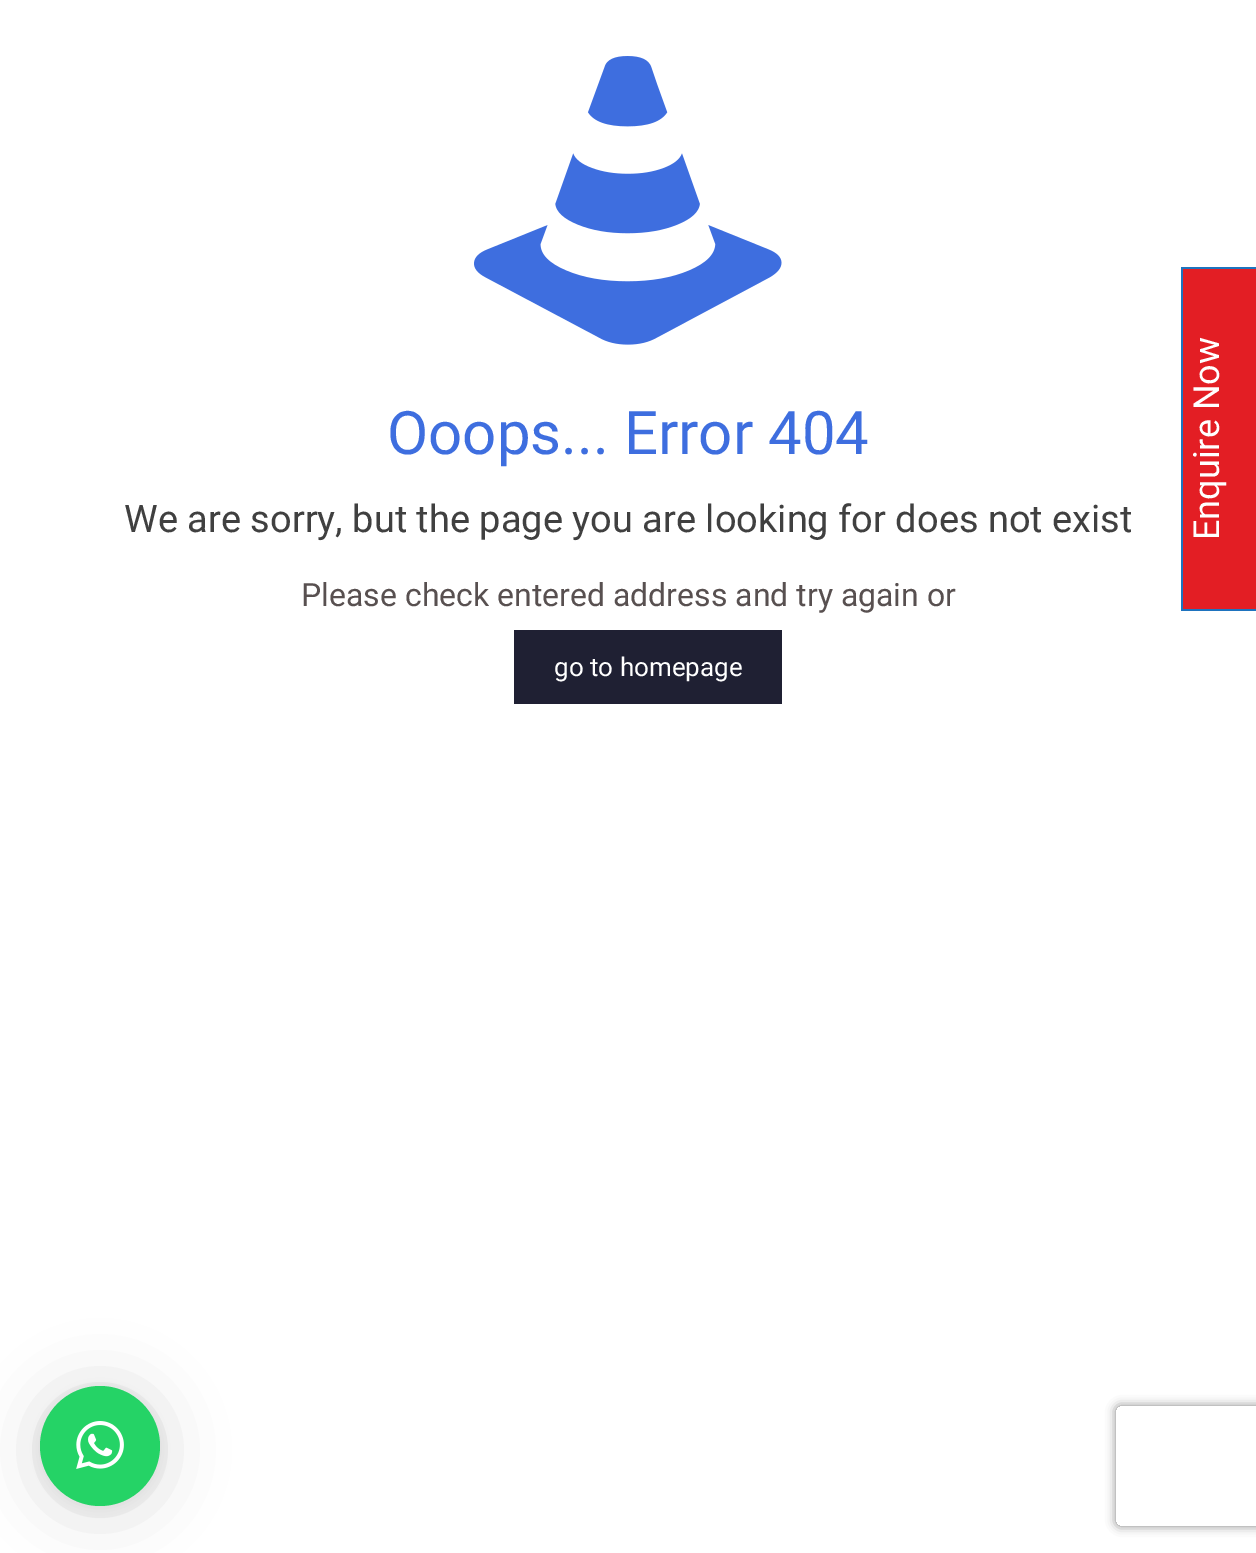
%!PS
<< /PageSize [1256 1553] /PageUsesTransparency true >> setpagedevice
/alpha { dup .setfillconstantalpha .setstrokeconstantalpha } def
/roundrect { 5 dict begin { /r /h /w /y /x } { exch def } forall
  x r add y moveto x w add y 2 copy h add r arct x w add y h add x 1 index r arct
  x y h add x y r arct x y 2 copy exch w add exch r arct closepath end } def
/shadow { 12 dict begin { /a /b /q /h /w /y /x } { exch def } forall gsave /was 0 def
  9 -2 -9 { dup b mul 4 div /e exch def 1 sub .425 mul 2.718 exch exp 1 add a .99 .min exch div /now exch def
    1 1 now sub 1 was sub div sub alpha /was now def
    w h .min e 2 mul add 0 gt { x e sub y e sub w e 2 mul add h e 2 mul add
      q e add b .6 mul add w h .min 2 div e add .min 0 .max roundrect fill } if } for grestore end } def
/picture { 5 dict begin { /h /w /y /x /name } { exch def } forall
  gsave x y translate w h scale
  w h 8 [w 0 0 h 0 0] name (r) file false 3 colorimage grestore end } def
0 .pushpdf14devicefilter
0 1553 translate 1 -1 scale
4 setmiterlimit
1 setgray
0 0 1256 1553 rectfill
(img1.rgb) 474 56 308 289 picture
/Roboto-Regular [60 0 0 -60 0 0] selectfont
0.243 0.431 0.875 setrgbcolor
387 454 moveto (Ooops... Error 404) show
/Roboto-Regular [38 0 0 -38 0 0] selectfont
0.251 setgray
124 532 moveto (We are sorry, but the page you are looking for does not exist) show
/Roboto-Regular [32 0 0 -32 0 0] selectfont
0.345 0.314 0.314 setrgbcolor
301 606 moveto (Please check entered address and try again or) show
0.122 0.125 0.2 setrgbcolor
514 630 268 74 rectfill
/Roboto-Regular [26 0 0 -26 0 0] selectfont
1 setgray
554 676 moveto (go to homepage) show
0.89 0.118 0.141 setrgbcolor
1183 269 73 340 rectfill
0.118 0.451 0.745 setrgbcolor
1181 267 2 344 rectfill
1181 267 75 2 rectfill
1181 609 75 2 rectfill
/Roboto-Regular [36 0 0 -36 0 0] selectfont
1 setgray
gsave 1219 540 translate -90 rotate 0 0 moveto (Enquire Now) show grestore
0 setgray
40 1390 120 120 60 32 0.16 shadow
40 1388 120 120 60 6 0.06 shadow
0.145 0.827 0.4 setrgbcolor
newpath 100 1446 60 0 360 arc closepath fill
(img2.rgb) 76 1421 48 48 picture
gsave
newpath 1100 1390 moveto 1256 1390 lineto 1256 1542 lineto 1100 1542 lineto closepath 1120 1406 moveto 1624 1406 lineto 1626 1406 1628 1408 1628 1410 curveto 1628 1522 lineto 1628 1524 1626 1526 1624 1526 curveto 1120 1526 lineto 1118 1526 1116 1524 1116 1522 curveto 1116 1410 lineto 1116 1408 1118 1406 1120 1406 curveto closepath eoclip newpath
0.502 setgray
1116 1406 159 120 4 5 1 shadow
grestore
.poppdf14devicefilter showpage
